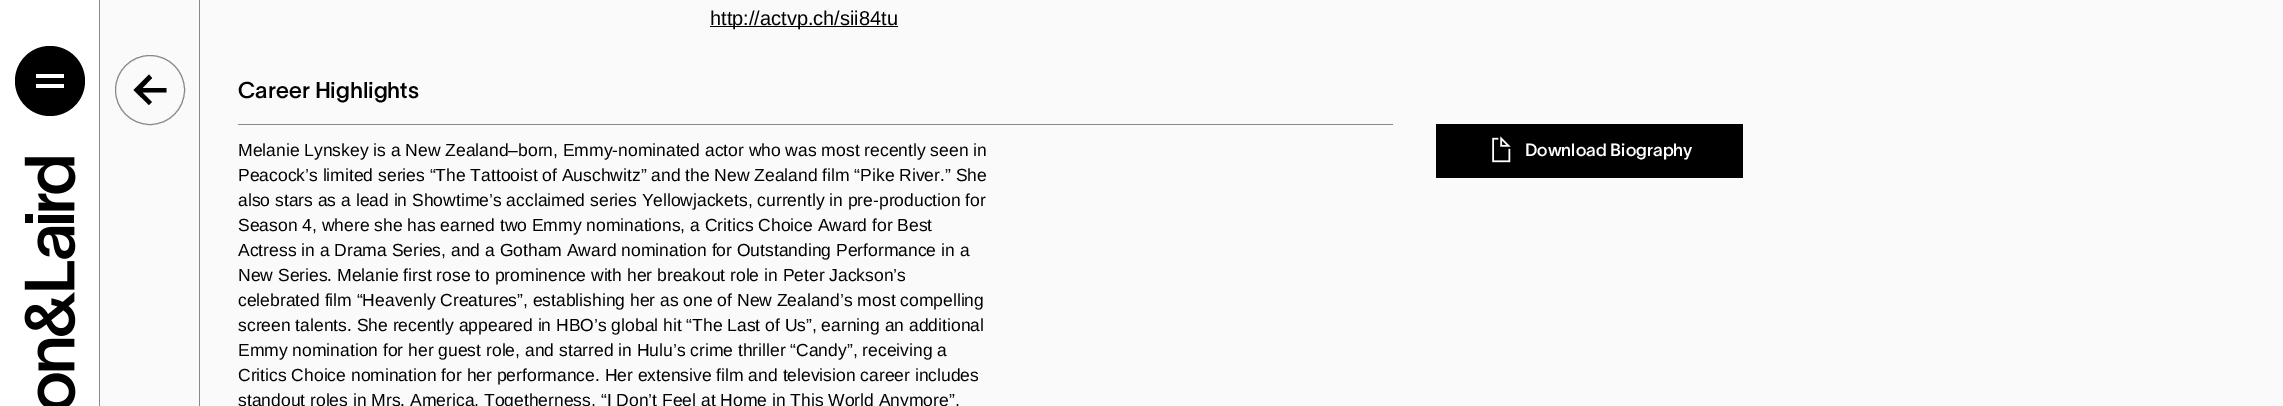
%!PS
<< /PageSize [2283 406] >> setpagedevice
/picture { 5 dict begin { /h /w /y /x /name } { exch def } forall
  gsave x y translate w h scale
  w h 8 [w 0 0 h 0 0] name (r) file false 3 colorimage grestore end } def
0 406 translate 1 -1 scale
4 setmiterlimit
0.98 setgray
0 0 2283 406 rectfill
1 setgray
0 0 99 406 rectfill
0 setgray
newpath 50 81 35 0 360 arc closepath fill
1 setgray
36 74 28 4 rectfill
36 84 28 4 rectfill
(img1.rgb) 24 157 52 249 picture
0.533 setgray
99 0 1 406 rectfill
199 0 1 406 rectfill
newpath 150 90 34.5 0 360 arc closepath stroke
0 setgray
newpath 149 105 moveto 133.5 90 lineto 149 74.5 lineto 152 78 lineto 142.5 88 lineto 166.5 88 lineto 166.5 92.5 lineto 142.5 92.5 lineto 152 102 lineto closepath fill
710 26 188 1 rectfill
/LiberationSans-Regular [20 0 0 -20 0 0] selectfont
710 25 moveto (http://actvp.ch/sii84tu) show
/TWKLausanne-Medium [22.5 0 0 -22.5 0 0] selectfont
238 98 moveto (Career Highlights) show
0.533 setgray
238 124 1155 1 rectfill
/LiberationSans-Regular [17.5 0 0 -17.5 0 0] selectfont
0 setgray
238 156 moveto (Melanie Lynskey is a New Zealand–born, Emmy-nominated actor who was most recently seen in) show
238 181 moveto (Peacock’s limited series “The Tattooist of Auschwitz” and the New Zealand film “Pike River.” She) show
238 206 moveto (also stars as a lead in Showtime’s acclaimed series Yellowjackets, currently in pre-production for) show
238 231 moveto (Season 4, where she has earned two Emmy nominations, a Critics Choice Award for Best) show
238 256 moveto (Actress in a Drama Series, and a Gotham Award nomination for Outstanding Performance in a) show
238 281 moveto (New Series. Melanie first rose to prominence with her breakout role in Peter Jackson’s) show
238 306 moveto (celebrated film “Heavenly Creatures”, establishing her as one of New Zealand’s most compelling) show
238 331 moveto (screen talents. She recently appeared in HBO’s global hit “The Last of Us”, earning an additional) show
238 356 moveto (Emmy nomination for her guest role, and starred in Hulu’s crime thriller “Candy”, receiving a) show
238 381 moveto (Critics Choice nomination for her performance. Her extensive film and television career includes) show
238 406 moveto (standout roles in Mrs. America, Togetherness, “I Don’t Feel at Home in This World Anymore”,) show
1436 124 307 54 rectfill
(img2.rgb) 1492 136 19 27 picture
/TWKLausanne-Medium [17.5 0 0 -17.5 0 0] selectfont
1 setgray
1525 156 moveto (Download Biography) show
showpage
